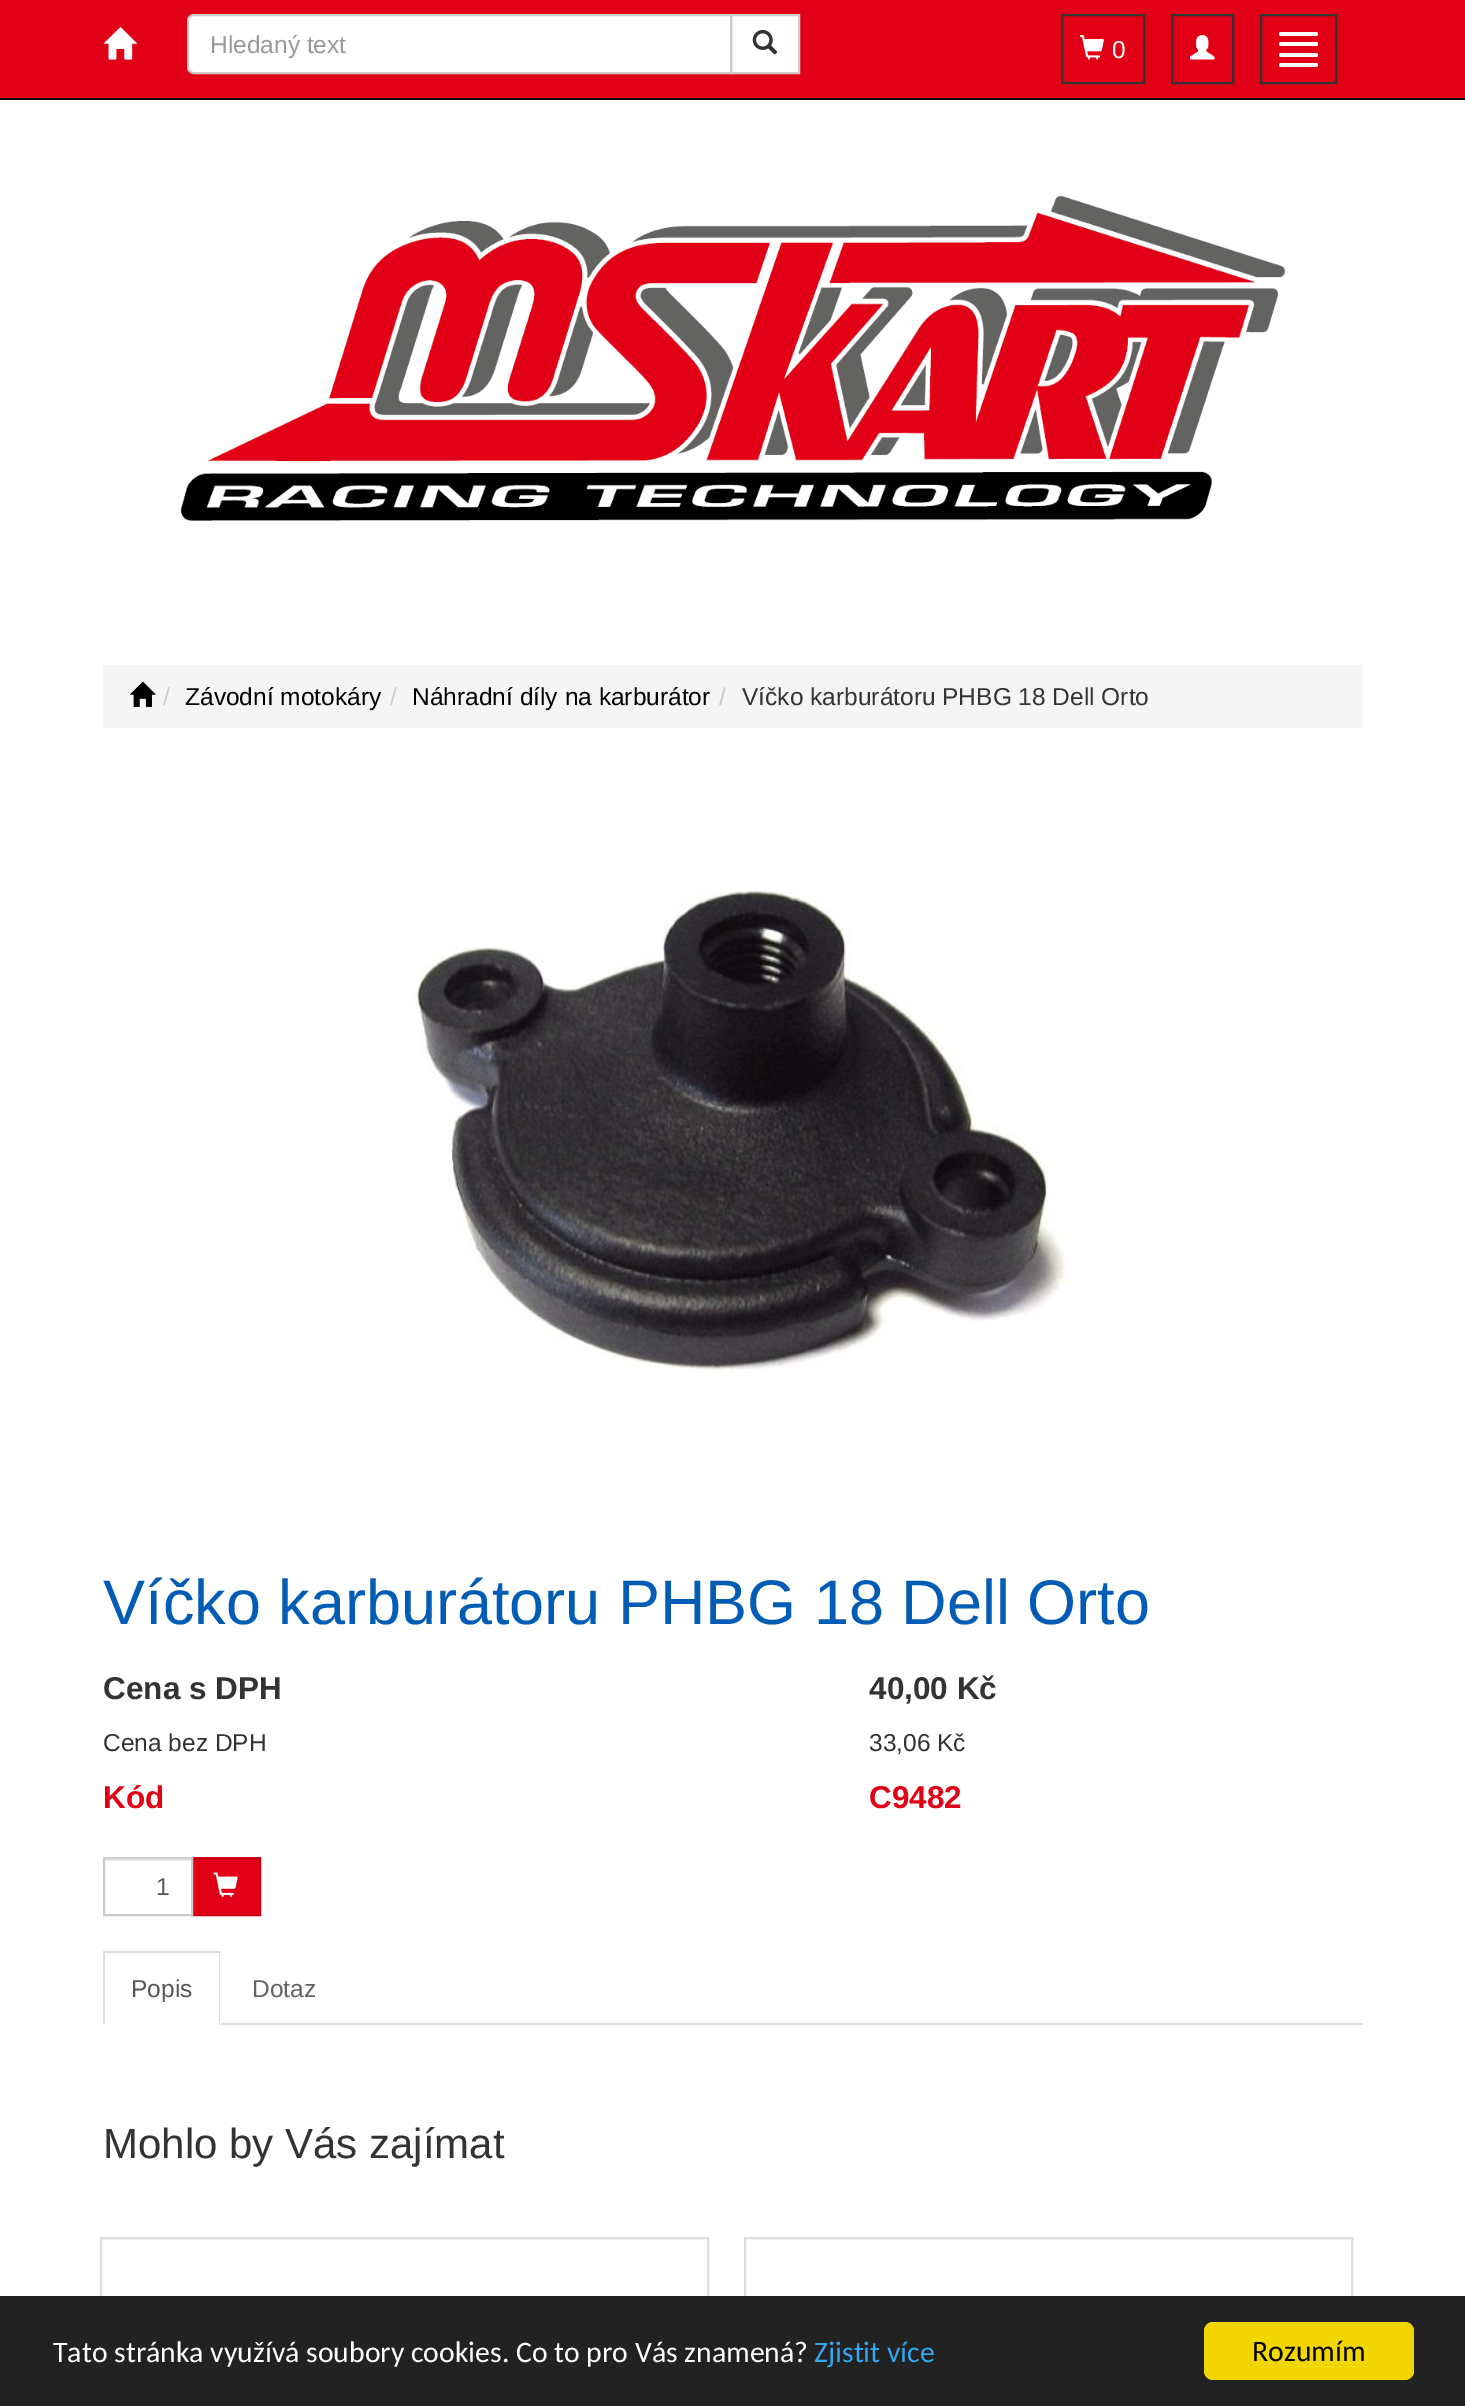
%!PS
<< /PageSize [1465 2406] >> setpagedevice
/roundrect { 5 dict begin { /r /h /w /y /x } { exch def } forall
  x r add y moveto x w add y 2 copy h add r arct x w add y h add x 1 index r arct
  x y h add x y r arct x y 2 copy exch w add exch r arct closepath end } def
/picture { 5 dict begin { /h /w /y /x /name } { exch def } forall
  gsave x y translate w h scale
  w h 8 [w 0 0 h 0 0] name (r) file false 3 colorimage grestore end } def
0 2406 translate 1 -1 scale
4 setmiterlimit
1 setgray
0 0 1465 2406 rectfill
0.886 0 0.086 setrgbcolor
0 0 1465 98 rectfill
0.031 setgray
0 98 1465 2 rectfill
(img1.rgb) 103 27 34 33 picture
1 setgray
newpath 731 15 moveto 799 15 lineto 799 73 lineto 731 73 lineto closepath gsave fill grestore
0.8 setgray
2 setlinewidth
stroke
1 setgray
newpath 194 15 moveto 731 15 lineto 731 73 lineto 194 73 lineto 190.5 73 188 70.5 188 67 curveto 188 21 lineto 188 17.5 190.5 15 194 15 curveto closepath gsave fill grestore
0.8 setgray
stroke
/LiberationSans-Regular [24.5 0 0 -24.5 0 0] selectfont
0.6 setgray
210 53 moveto (Hledaný text) show
(img2.rgb) 752 29 26 26 picture
0.2 setgray
1062 15 82 68 rectstroke
(img3.rgb) 1079 35 25 25 picture
1 setgray
1112 58 moveto (0) show
0.2 setgray
1172 15 61 68 rectstroke
(img4.rgb) 1190 35 25 25 picture
1261 15 75 68 rectstroke
1 setgray
1279 32 39 4 2 roundrect fill
1279 42 39 4 2 roundrect fill
1279 53 39 4 2 roundrect fill
1279 63 39 4 2 roundrect fill
(img5.rgb) 180 195 1106 326 picture
0.961 setgray
103 665 1260 63 rectfill
(img6.rgb) 129 681 27 26 picture
0.8 setgray
163 705 moveto (/) show
0 setgray
185 705 moveto (Závodní motokáry) show
0.8 setgray
390 705 moveto (/) show
0 setgray
412 705 moveto (Náhradní díly na karburátor) show
0.8 setgray
719 705 moveto (/) show
0.2 setgray
742 705 moveto (Víčko karburátoru PHBG 18 Dell Orto) show
(img7.rgb) 414 891 655 482 picture
/LiberationSans-Regular [63 0 0 -63 0 0] selectfont
0 0.361 0.706 setrgbcolor
103 1624 moveto (Víčko karburátoru PHBG 18 Dell Orto) show
/LiberationSans-Bold [31.5 0 0 -31.5 0 0] selectfont
0.2 setgray
103 1699 moveto (Cena s DPH) show
869 1699 moveto (40,00 Kč) show
/LiberationSans-Regular [24.5 0 0 -24.5 0 0] selectfont
103 1751 moveto (Cena bez DPH) show
869 1751 moveto (33,06 Kč) show
/LiberationSans-Bold [31.5 0 0 -31.5 0 0] selectfont
0.886 0 0.086 setrgbcolor
103 1808 moveto (Kód) show
869 1808 moveto (C9482) show
0.925 setgray
105 1859 86 2 rectfill
0.886 0 0.086 setrgbcolor
newpath 192 1858 moveto 260 1858 lineto 260 1915 lineto 192 1915 lineto closepath gsave fill grestore
0.788 0 0.078 setrgbcolor
stroke
0.8 setgray
104 1858 88 57 rectstroke
/LiberationSans-Regular [24.5 0 0 -24.5 0 0] selectfont
0.333 setgray
156 1895 moveto (1) show
(img8.rgb) 213 1872 25 25 picture
0.867 setgray
221 2023 1142 2 rectfill
103 1951 118 2 rectfill
newpath 220 1951 moveto 220 2025 lineto 219 2023 lineto 219 1953 lineto closepath fill
newpath 103 2025 moveto 103 1951 lineto 105 1953 lineto 105 2023 lineto closepath fill
0.333 setgray
131 1997 moveto (Popis) show
0.388 setgray
252 1997 moveto (Dotaz) show
/LiberationSans-Regular [42 0 0 -42 0 0] selectfont
0.2 setgray
103 2158 moveto (Mohlo by Vás zajímat) show
0.867 setgray
101 2238 607 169 rectstroke
745 2238 607 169 rectstroke
0.133 setgray
0 2296 1465 110 rectfill
/Carlito-Regular [29.75 0 0 -29.75 0 0] selectfont
1 setgray
53 2362 moveto (Tato stránka využívá soubory cookies. Co to pro Vás znamená?) show
0.192 0.659 0.941 setrgbcolor
814 2362 moveto (Zjistit více) show
0.945 0.839 0 setrgbcolor
1204 2322 210 58 9 roundrect fill
0 setgray
1252 2361 moveto (Rozumím) show
showpage
